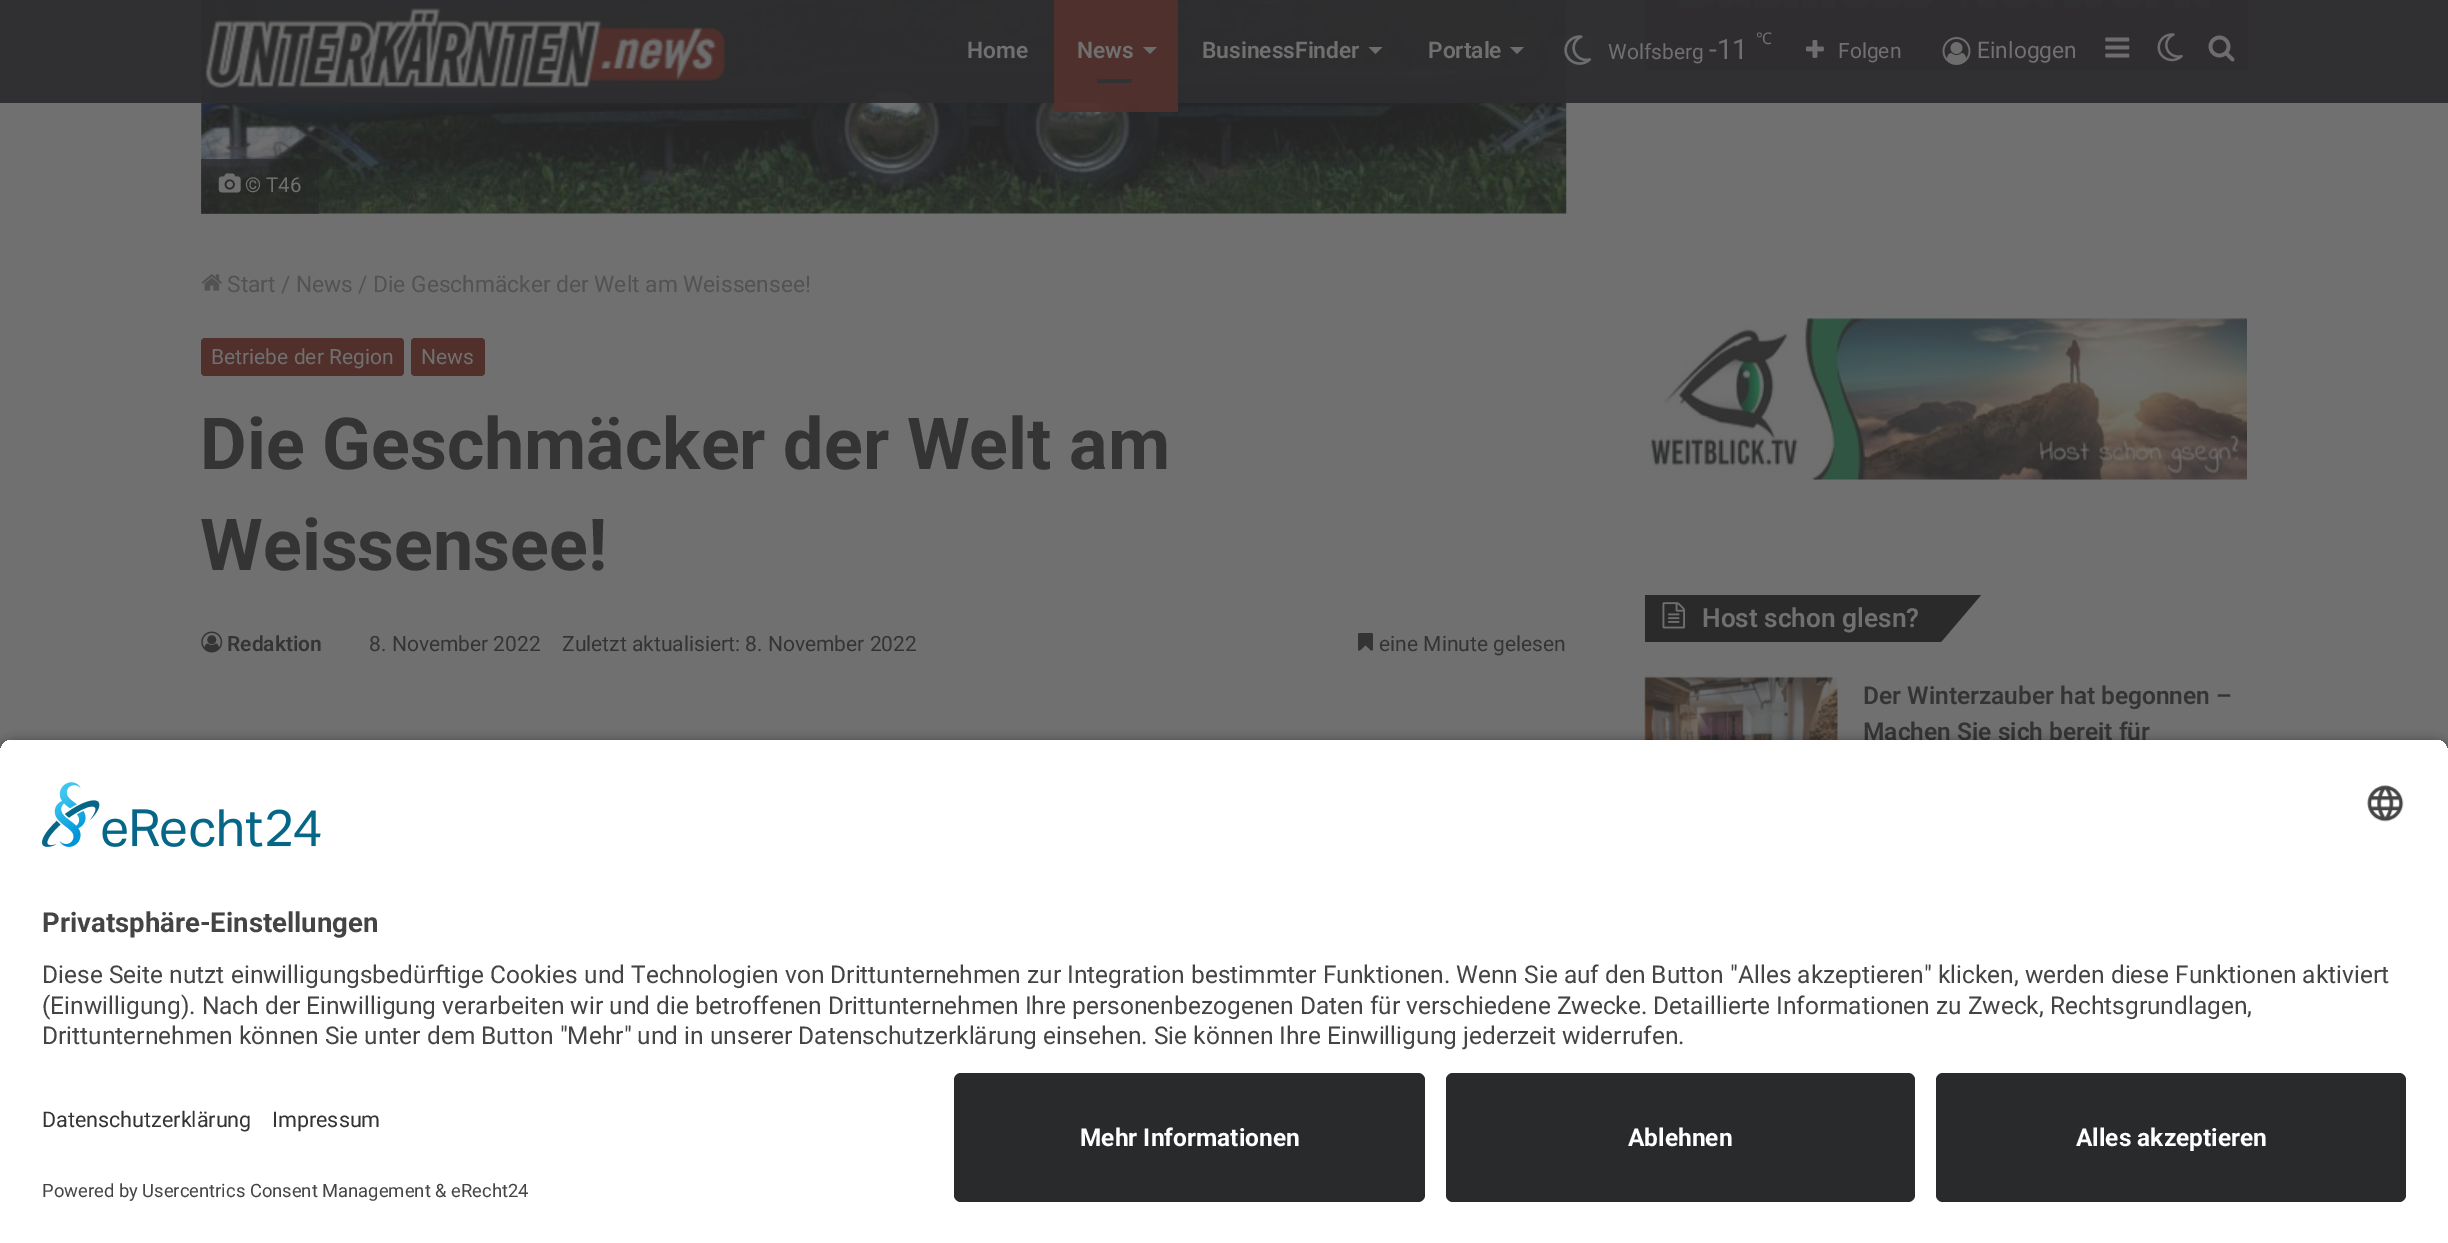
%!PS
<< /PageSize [2448 1243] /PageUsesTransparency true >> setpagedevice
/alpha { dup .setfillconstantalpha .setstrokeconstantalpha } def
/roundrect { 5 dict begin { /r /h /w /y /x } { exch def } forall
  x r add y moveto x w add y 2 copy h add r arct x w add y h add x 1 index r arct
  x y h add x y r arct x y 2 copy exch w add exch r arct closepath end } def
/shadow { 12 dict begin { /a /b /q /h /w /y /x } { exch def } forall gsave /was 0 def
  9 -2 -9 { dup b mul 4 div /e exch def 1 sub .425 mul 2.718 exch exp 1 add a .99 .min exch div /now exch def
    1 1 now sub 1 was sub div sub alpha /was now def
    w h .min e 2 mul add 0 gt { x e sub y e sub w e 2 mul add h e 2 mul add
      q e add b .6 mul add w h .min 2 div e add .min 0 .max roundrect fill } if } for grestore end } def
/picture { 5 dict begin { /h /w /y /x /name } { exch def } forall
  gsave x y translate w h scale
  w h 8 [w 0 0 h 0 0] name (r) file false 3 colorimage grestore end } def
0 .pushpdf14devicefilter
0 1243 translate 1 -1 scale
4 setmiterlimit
0.439 setgray
0 0 2448 1243 rectfill
(img8.rgb) 201 0 1366 214 picture
(img13.rgb) 1645 0 604 71 picture
0.95 alpha
0.176 0.176 0.184 setrgbcolor
0 0 2448 103 rectfill
1 alpha
(img1.rgb) 205 8 521 80 picture
/Roboto-SemiBold [22.75 0 0 -22.75 0 0] selectfont
0.439 setgray
967 58 moveto (Home) show
0.95 alpha
0.318 0.188 0.173 setrgbcolor
1054 103 124 9 rectfill
1054 0 124 103 rectfill
1 alpha
0.439 setgray
1077 58 moveto (News) show
0.427 setgray
newpath 1143 47 moveto 1157 47 lineto 1150 54 lineto closepath fill
0.192 0.196 0.2 setrgbcolor
1097 79 35 4 rectfill
0.439 setgray
1202 58 moveto (BusinessFinder) show
0.427 setgray
newpath 1368.5 47 moveto 1382.5 47 lineto 1375.5 54 lineto closepath fill
0.439 setgray
1428 58 moveto (Portale) show
0.427 setgray
newpath 1510 47 moveto 1524 47 lineto 1517 54 lineto closepath fill
(img2.rgb) 1564 35 28 30 picture
/Roboto-Regular [21 0 0 -21 0 0] selectfont
0.439 setgray
1608 59 moveto (Wolfsberg) show
/Roboto-Regular [28 0 0 -28 0 0] selectfont
1709 59 moveto (-11) show
/NotoSans-Regular [16 0 0 -16 0 0] selectfont
1756 44 moveto (℃) show
(img3.rgb) 1806 40 18 18 picture
/Roboto-Regular [21 0 0 -21 0 0] selectfont
1838 58 moveto (Folgen) show
(img4.rgb) 1942 37 29 28 picture
/Roboto-Regular [22.75 0 0 -22.75 0 0] selectfont
1977 58 moveto (Einloggen) show
(img5.rgb) 2105 37 25 21 picture
(img6.rgb) 2157 33 26 29 picture
(img7.rgb) 2208 35 27 27 picture
0.6 alpha
0.145 setgray
201 159 118 55 rectfill
1 alpha
(img9.rgb) 218 173 23 20 picture
/Roboto-Regular [20.5 0 0 -20.5 0 0] selectfont
0.439 setgray
245 192 moveto (© T46) show
(img10.rgb) 201 274 21 17 picture
/Roboto-Regular [22.75 0 0 -22.75 0 0] selectfont
0.322 setgray
227 292 moveto (Start) show
281 292 moveto (/) show
296 292 moveto (News) show
358 292 moveto (/) show
373 292 moveto (Die Geschmäcker der Welt am Weissensee!) show
0.318 0.188 0.173 setrgbcolor
201 338 203 38 4 roundrect fill
/Roboto-Regular [21 0 0 -21 0 0] selectfont
0.439 setgray
211 364 moveto (Betriebe der Region) show
0.318 0.188 0.173 setrgbcolor
411 338 74 38 4 roundrect fill
0.439 setgray
421 364 moveto (News) show
/Roboto-Bold [71.75 0 0 -71.75 0 0] selectfont
0.204 setgray
200 469 moveto (Die Geschmäcker der Welt am) show
200 570 moveto (Weissensee!) show
(img11.rgb) 201 631 22 22 picture
/Roboto-SemiBold [21 0 0 -21 0 0] selectfont
227 651 moveto (Redaktion) show
/Roboto-Regular [21 0 0 -21 0 0] selectfont
369 651 moveto (8. November 2022) show
562 651 moveto (Zuletzt aktualisiert: 8. November 2022) show
(img12.rgb) 1358 633 15 18 picture
1379 651 moveto (eine Minute gelesen) show
(img14.rgb) 1645 318 602 162 picture
0.165 setgray
1645 595 131 47 rectfill
newpath 1776 595 moveto 1981 595 lineto 1941 642 lineto 1736 642 lineto closepath fill
(img15.rgb) 1662 602 23 27 picture
/Roboto-SemiBold [26.25 0 0 -26.25 0 0] selectfont
0.439 setgray
1702 627 moveto (Host schon glesn?) show
(img16.rgb) 1644 676 194 64 picture
/Roboto-SemiBold [24.5 0 0 -24.5 0 0] selectfont
0.204 setgray
1863 704 moveto (Der Winterzauber hat begonnen –) show
1863 740 moveto (Machen Sie sich bereit für) show
0 setgray
0 744 2448 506 14 6 0.8 shadow
gsave
newpath 14 739 moveto 2434 739 lineto 2441.5 739 2448 745.5 2448 753 curveto 2448 1059 lineto 0 1059 lineto 0 753 lineto 0 745.5 6.5 739 14 739 curveto closepath clip newpath
1 setgray
0 740 2448 319 rectfill
grestore
(img17.rgb) 42 782 279 65 picture
(img18.rgb) 2367 785 37 37 picture
/Roboto-Bold [27.5 0 0 -27.5 0 0] selectfont
0.267 setgray
42 932 moveto (Privatsphäre-Einstellungen) show
/Roboto-Regular [24.5 0 0 -24.5 0 0] selectfont
42 983 moveto (Diese Seite nutzt einwilligungsbedürftige Cookies und Technologien von Drittunternehmen zur Integration bestimmter Funktionen. Wenn Sie auf den Button "Alles akzeptieren" klicken, werden diese Funktionen aktiviert) show
42 1014 moveto (\(Einwilligung\). Nach der Einwilligung verarbeiten wir und die betroffenen Drittunternehmen Ihre personenbezogenen Daten für verschiedene Zwecke. Detaillierte Informationen zu Zweck, Rechtsgrundlagen,) show
42 1044 moveto (Drittunternehmen können Sie unter dem Button "Mehr" und in unserer Datenschutzerklärung einsehen. Sie können Ihre Einwilligung jederzeit widerrufen.) show
1 setgray
0 1059 2448 184 rectfill
/Roboto-Regular [21.5 0 0 -21.5 0 0] selectfont
0.204 setgray
42 1127 moveto (Datenschutzerklärung) show
272 1127 moveto (Impressum) show
/Roboto-Regular [18.4 0 0 -18.4 0 0] selectfont
0.267 setgray
42 1197 moveto (Powered by Usercentrics Consent Management & eRecht24) show
0.161 0.165 0.169 setrgbcolor
954 1073 471 129 7 roundrect fill
/Roboto-Bold [24.5 0 0 -24.5 0 0] selectfont
1 setgray
1080 1146 moveto (Mehr Informationen) show
0.161 0.165 0.169 setrgbcolor
1446 1073 469 129 7 roundrect fill
1 setgray
1628 1146 moveto (Ablehnen) show
0.161 0.165 0.169 setrgbcolor
1936 1073 470 129 7 roundrect fill
1 setgray
2076 1146 moveto (Alles akzeptieren) show
.poppdf14devicefilter showpage
